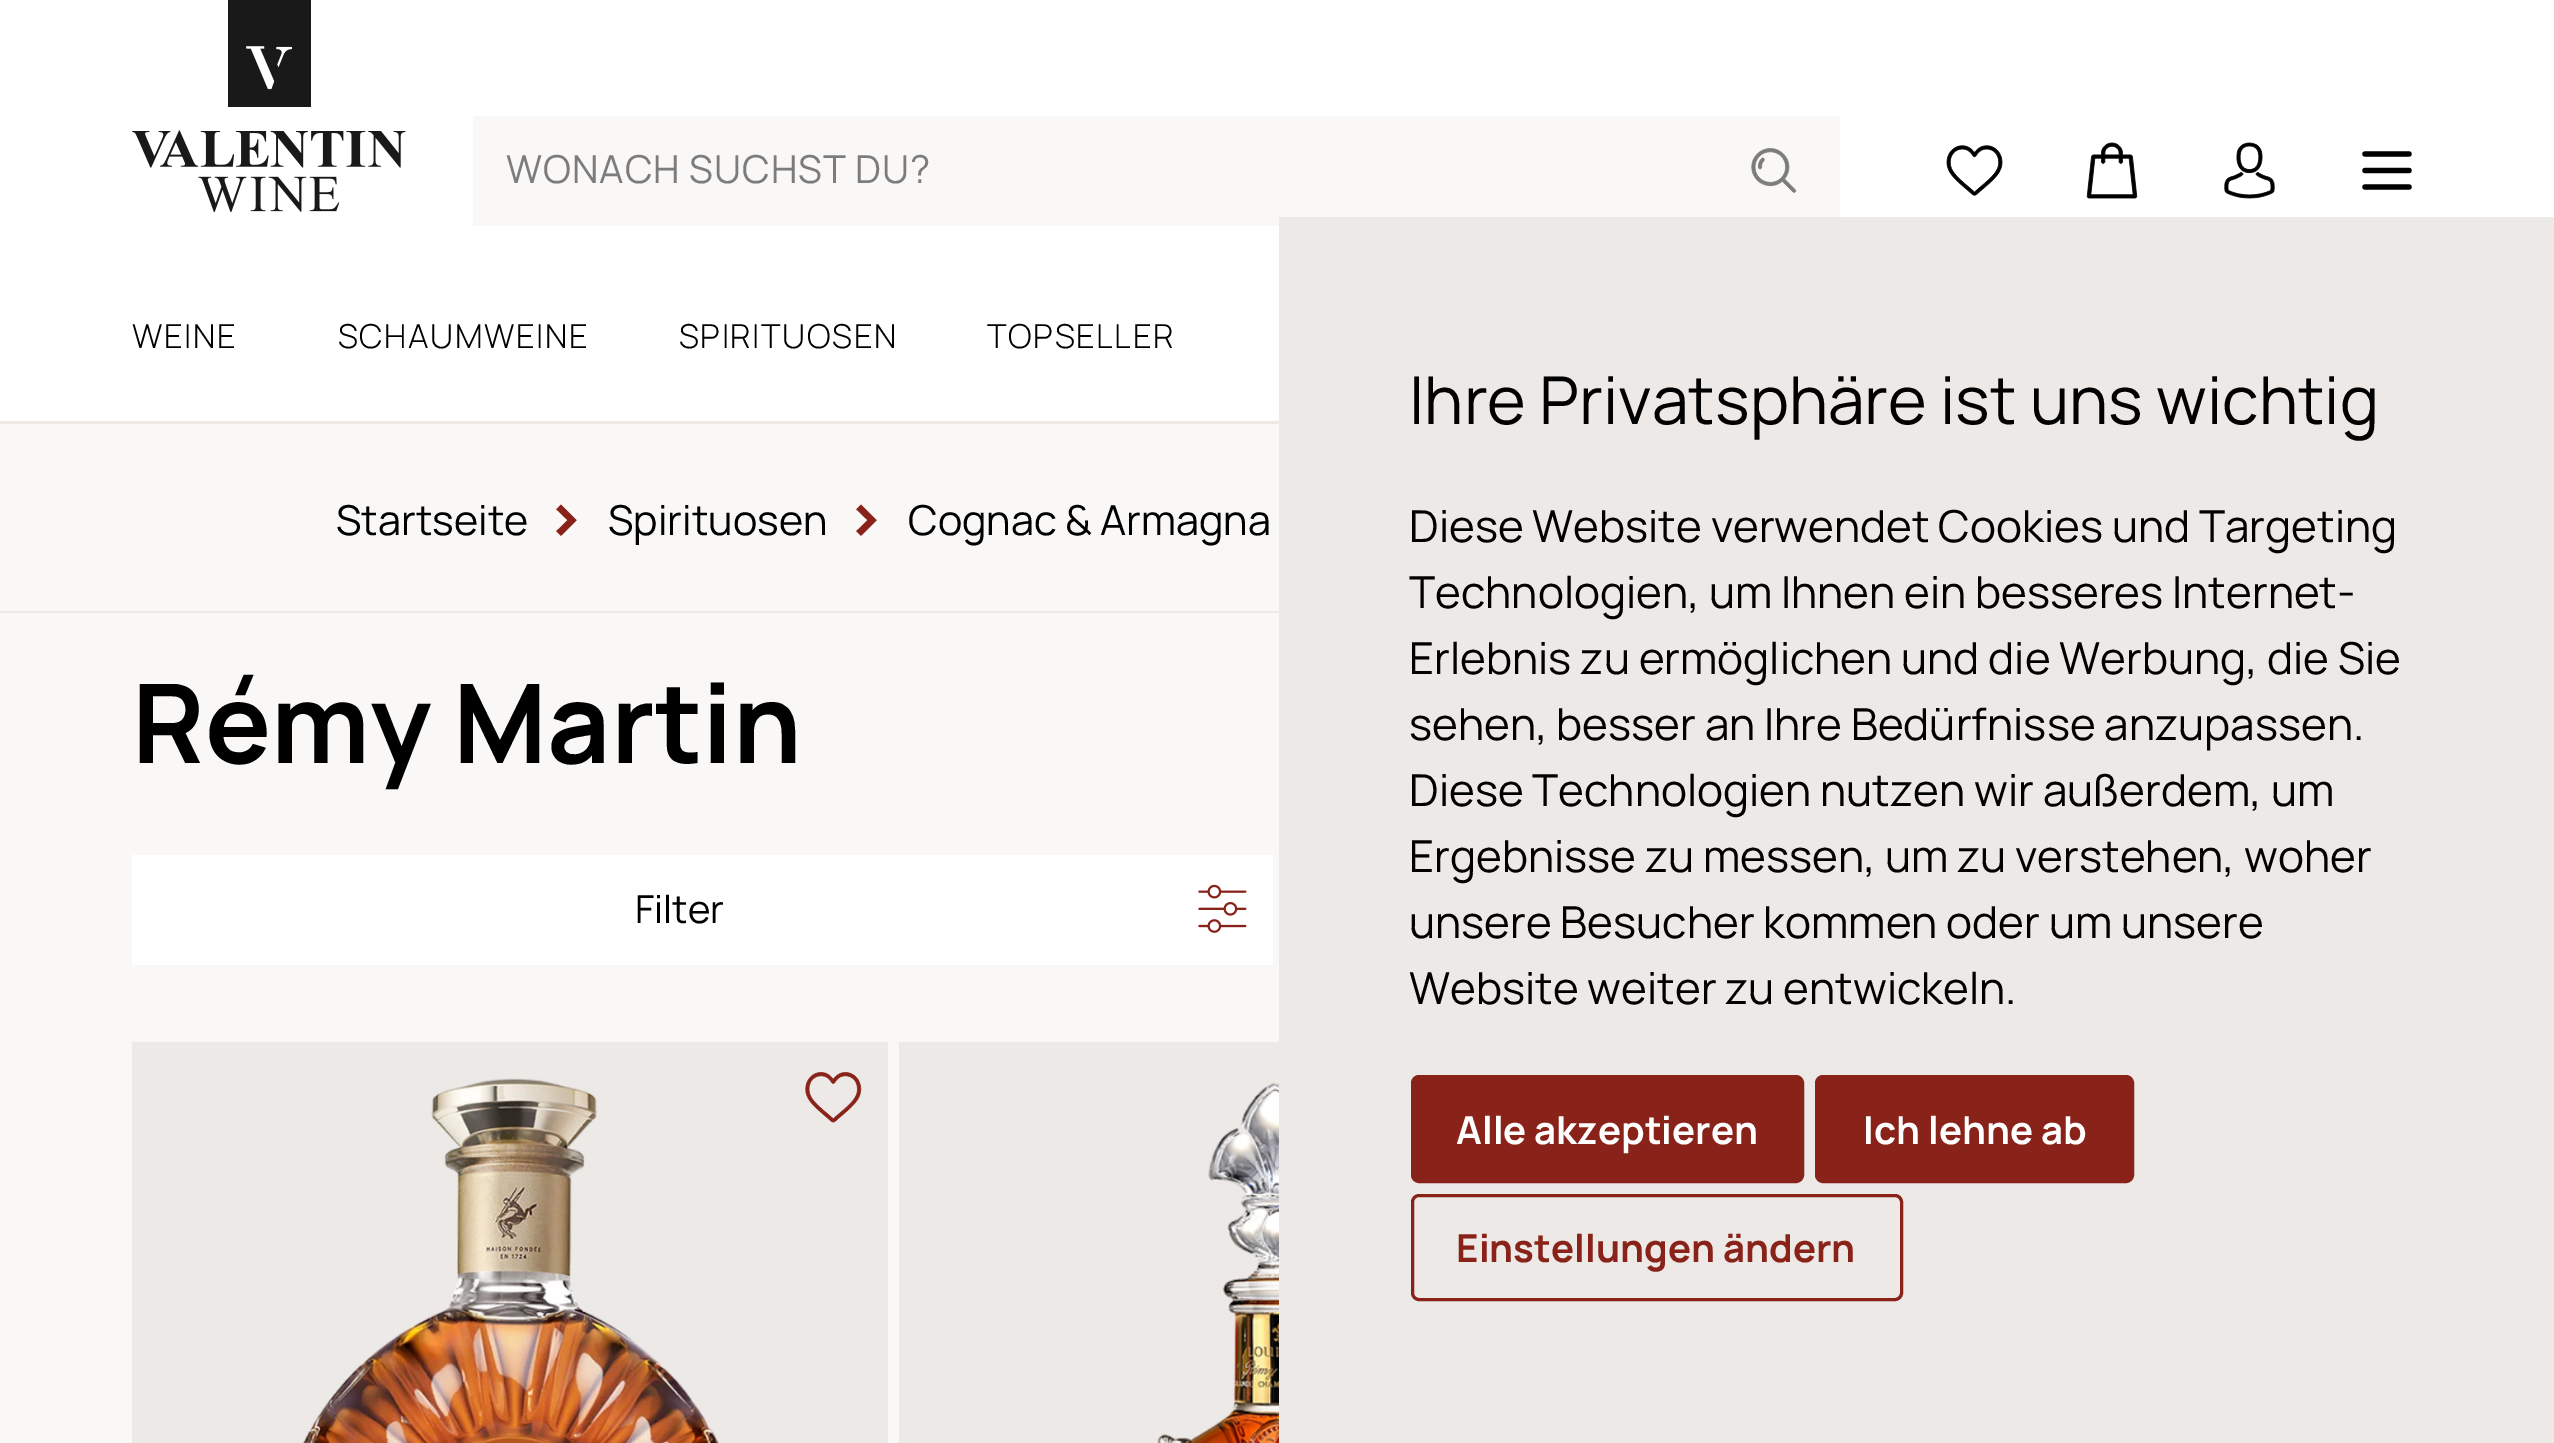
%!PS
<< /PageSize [2554 1443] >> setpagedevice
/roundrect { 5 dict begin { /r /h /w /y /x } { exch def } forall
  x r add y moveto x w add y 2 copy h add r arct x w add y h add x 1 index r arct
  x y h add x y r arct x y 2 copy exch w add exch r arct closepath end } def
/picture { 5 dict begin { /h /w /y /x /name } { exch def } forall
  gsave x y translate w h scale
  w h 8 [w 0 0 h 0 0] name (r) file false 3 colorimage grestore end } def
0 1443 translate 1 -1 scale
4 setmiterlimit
1 setgray
0 0 2554 1443 rectfill
(img1.rgb) 132 0 274 212 picture
0.976 0.973 0.969 setrgbcolor
473 116 1367 110 rectfill
/Manrope-Regular [38.5 0 0 -38.5 0 0] selectfont
0.49 0.486 0.486 setrgbcolor
506 183 moveto 1 0 (WONACH SUCHST DU?) ashow
(img2.rgb) 1751 148 46 45 picture
(img3.rgb) 1946 145 57 51 picture
(img4.rgb) 2086 142 52 57 picture
(img5.rgb) 2224 142 51 57 picture
(img6.rgb) 2362 151 50 39 picture
0.925 0.914 0.906 setrgbcolor
0 421 1279 3 rectfill
/Manrope-Light [33 0 0 -33 0 0] selectfont
0 setgray
132 348 moveto 1.6 0 (WEINE) ashow
338 348 moveto 1.6 0 (SCHAUMWEINE) ashow
679 348 moveto 1.6 0 (SPIRITUOSEN) ashow
987 348 moveto 1.6 0 (TOPSELLER) ashow
0.976 0.973 0.969 setrgbcolor
0 424 1279 187 rectfill
0.925 0.914 0.906 setrgbcolor
0 611 1279 2 rectfill
/Manrope-Regular [41.25 0 0 -41.25 0 0] selectfont
0 setgray
336 535 moveto (Startseite) show
/Manrope-Bold [66 0 0 -66 0 0] selectfont
0.537 0.133 0.098 setrgbcolor
544 541 moveto (>) show
/Manrope-Regular [41.25 0 0 -41.25 0 0] selectfont
0 setgray
608 535 moveto (Spirituosen) show
/Manrope-Bold [66 0 0 -66 0 0] selectfont
0.537 0.133 0.098 setrgbcolor
844 541 moveto (>) show
/Manrope-Regular [41.25 0 0 -41.25 0 0] selectfont
0 setgray
908 535 moveto (Cognac & Armagna) show
0.976 0.973 0.969 setrgbcolor
0 613 1279 830 rectfill
/Manrope-Bold [110 0 0 -110 0 0] selectfont
0 setgray
132 763 moveto (Rémy Martin) show
1 setgray
132 855 1141 110 rectfill
(img7.rgb) 1198 884 49 49 picture
/Manrope-Regular [38.5 0 0 -38.5 0 0] selectfont
0 setgray
635 923 moveto (Filter) show
0.925 0.914 0.906 setrgbcolor
132 1042 756 401 rectfill
(img8.rgb) 303 1078 416 365 picture
(img9.rgb) 805 1072 57 51 picture
899 1042 380 401 rectfill
(img10.rgb) 1157 1082 122 361 picture
1279 217 1275 1226 rectfill
/Manrope-Regular [66 0 0 -66 0 0] selectfont
0 setgray
1409 424 moveto (Ihre Privatsphäre ist uns wichtig) show
/Manrope-Regular [44 0 0 -44 0 0] selectfont
1409 542 moveto (Diese Website verwendet Cookies und Targeting) show
1409 608 moveto (Technologien, um Ihnen ein besseres Internet-) show
1409 674 moveto (Erlebnis zu ermöglichen und die Werbung, die Sie) show
1409 740 moveto (sehen, besser an Ihre Bedürfnisse anzupassen.) show
1409 806 moveto (Diese Technologien nutzen wir außerdem, um) show
1409 872 moveto (Ergebnisse zu messen, um zu verstehen, woher) show
1409 938 moveto (unsere Besucher kommen oder um unsere) show
1409 1004 moveto (Website weiter zu entwickeln.) show
0.537 0.133 0.098 setrgbcolor
1412.5 1076.5 390 105 6.5 roundrect gsave fill grestore
3 setlinewidth
stroke
/Manrope-Bold [38.5 0 0 -38.5 0 0] selectfont
1 setgray
1456 1144 moveto (Alle akzeptieren) show
0.537 0.133 0.098 setrgbcolor
1816.5 1076.5 316 105 6.5 roundrect gsave fill grestore
stroke
1 setgray
1863 1144 moveto (Ich lehne ab) show
0.537 0.133 0.098 setrgbcolor
1412.5 1195.5 489 104 6.5 roundrect stroke
1456 1262 moveto (Einstellungen ändern) show
showpage
